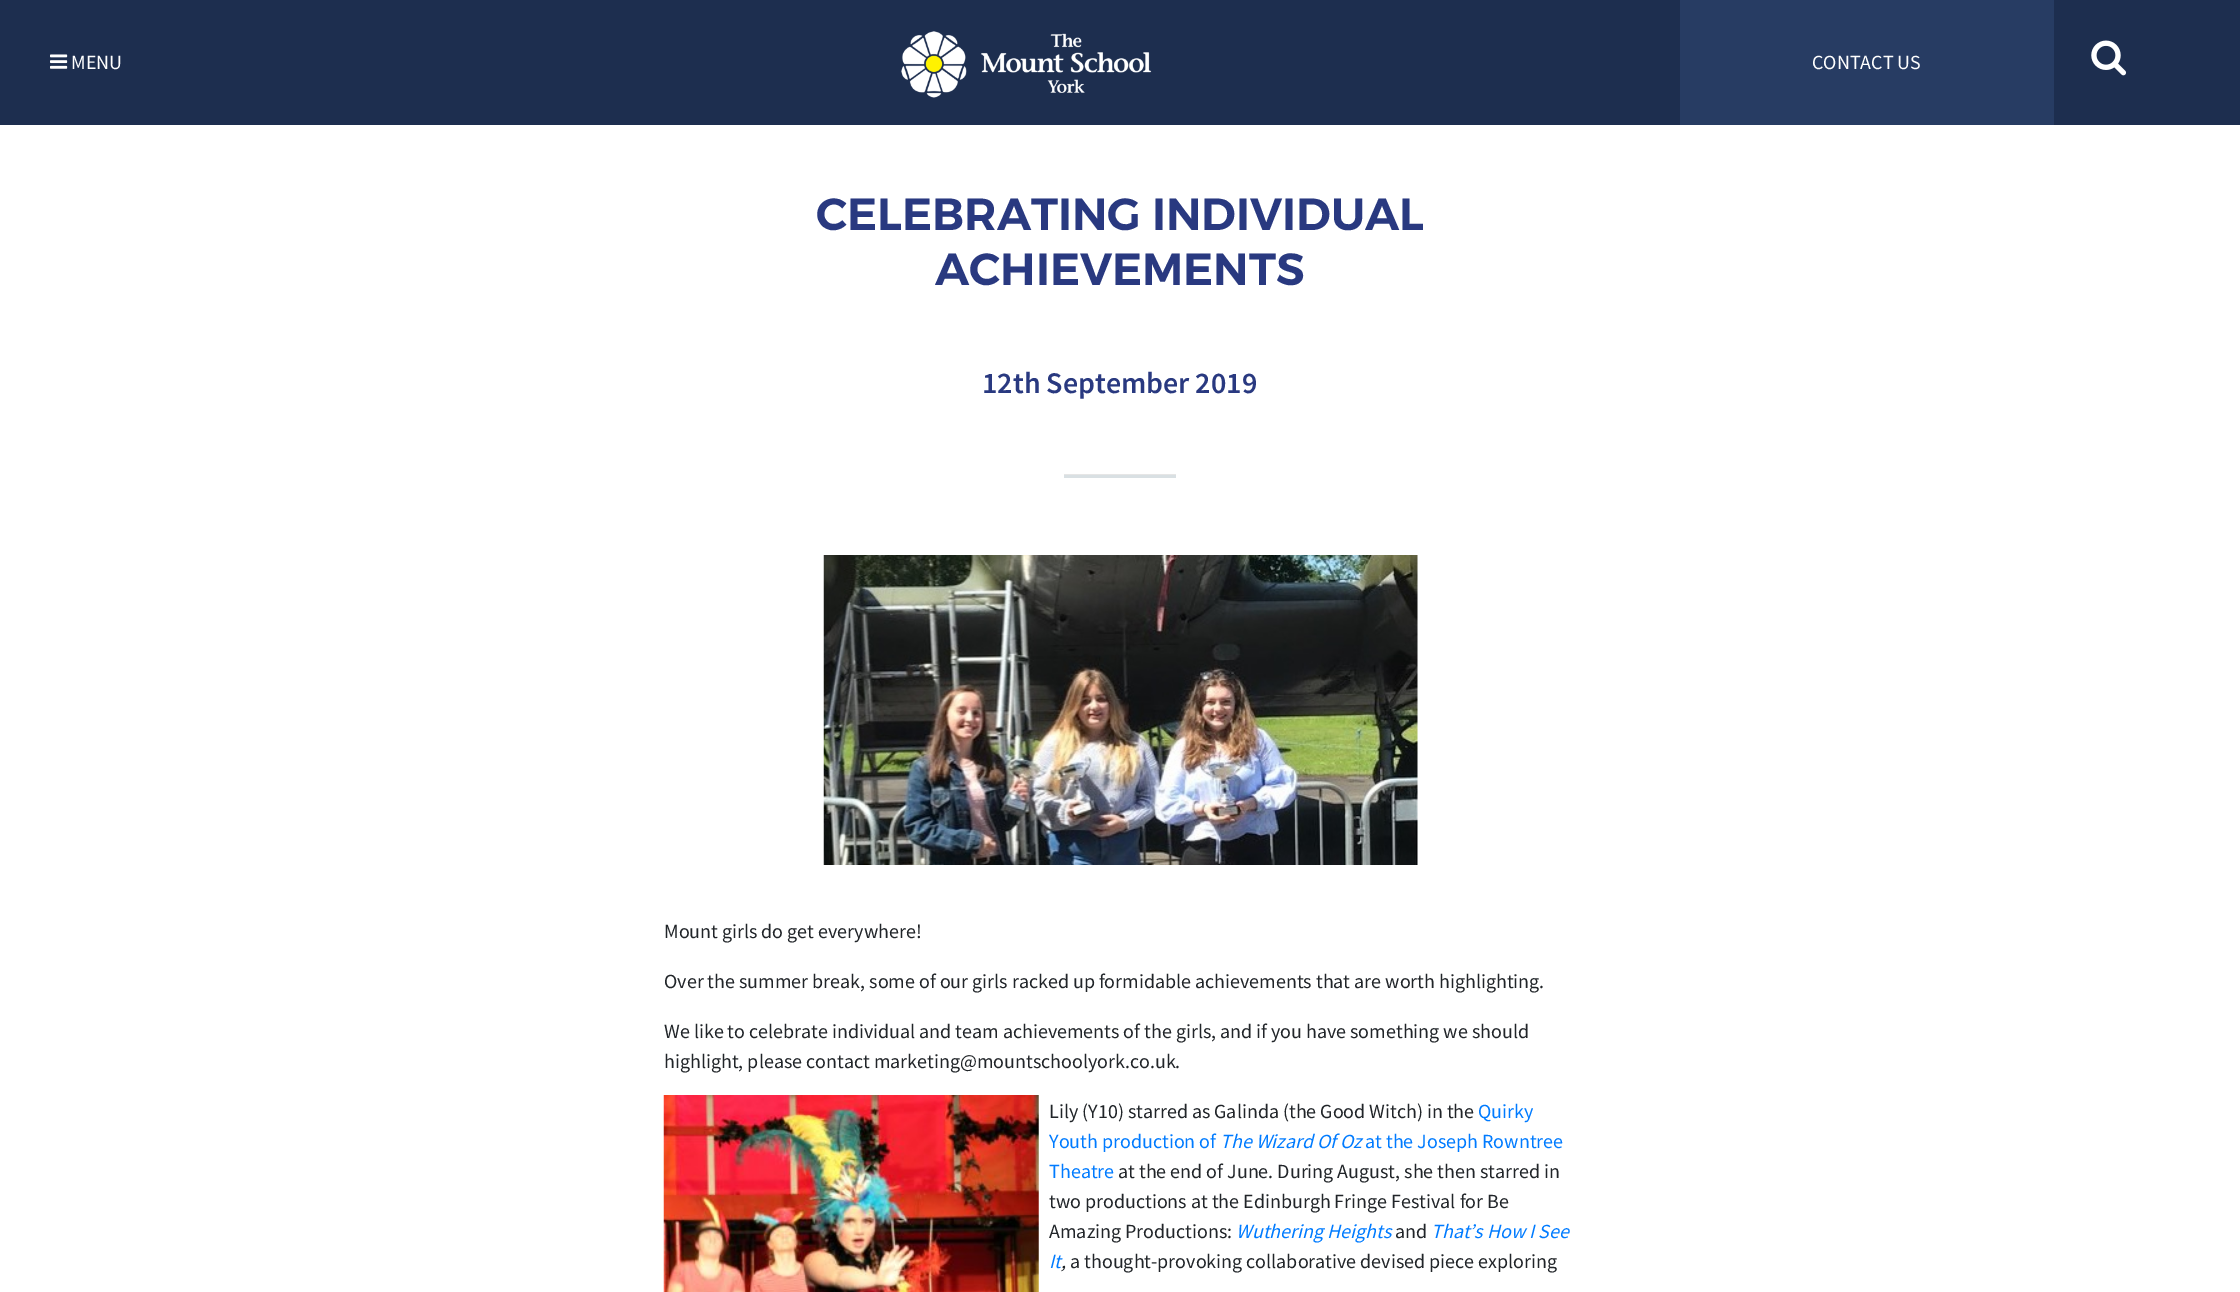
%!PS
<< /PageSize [2240 1292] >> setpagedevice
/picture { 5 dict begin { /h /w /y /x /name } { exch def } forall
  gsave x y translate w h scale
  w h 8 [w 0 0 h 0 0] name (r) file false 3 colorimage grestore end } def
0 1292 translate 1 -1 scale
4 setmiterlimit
1 setgray
0 0 2240 1292 rectfill
0.114 0.18 0.31 setrgbcolor
0 0 2240 125 rectfill
(img1.rgb) 50 54 18 15 picture
/SourceSansPro-Regular [20 0 0 -20 0 0] selectfont
1 setgray
71 69 moveto (MENU) show
(img2.rgb) 901 31 251 67 picture
0.153 0.235 0.388 setrgbcolor
1680 0 374 125 rectfill
1 setgray
1812 69 moveto (CONTACT US) show
(img3.rgb) 2091 40 36 36 picture
/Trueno-SemiBold [45 0 0 -45 0 0] selectfont
0.161 0.224 0.502 setrgbcolor
816 230 moveto (CELEBRATING INDIVIDUAL) show
935 285 moveto (ACHIEVEMENTS) show
/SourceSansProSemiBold-SemiBold [30 0 0 -30 0 0] selectfont
982 393 moveto (12th September 2019) show
0.902 setgray
1064 474 112 1 rectfill
0.851 0.878 0.89 setrgbcolor
1064 475 112 3 rectfill
(img4.rgb) 823 555 595 310 picture
/SourceSansPro-Regular [20 0 0 -20 0 0] selectfont
0.129 0.145 0.161 setrgbcolor
664 938 moveto (Mount girls do get everywhere!) show
664 988 moveto (Over the summer break, some of our girls racked up formidable achievements that are worth highlighting.) show
664 1038 moveto (We like to celebrate individual and team achievements of the girls, and if you have something we should) show
664 1068 moveto (highlight, please contact marketing@mountschoolyork.co.uk.) show
(img5.rgb) 663 1095 376 197 picture
1049 1118 moveto (Lily \(Y10\) starred as Galinda \(the Good Witch\) in the) show
0 0.482 1 setrgbcolor
1478 1118 moveto (Quirky) show
1049 1148 moveto (Youth production of) show
/SourceSansPro-Italic [20 0 0 -20 0 0] selectfont
1220 1148 moveto (The Wizard Of Oz) show
/SourceSansPro-Regular [20 0 0 -20 0 0] selectfont
1365 1148 moveto (at the Joseph Rowntree) show
1049 1178 moveto (Theatre) show
0.129 0.145 0.161 setrgbcolor
1118 1178 moveto (at the end of June. During August, she then starred in) show
1049 1208 moveto (two productions at the Edinburgh Fringe Festival for Be) show
1049 1238 moveto (Amazing Productions:) show
/SourceSansPro-Italic [20 0 0 -20 0 0] selectfont
0 0.482 1 setrgbcolor
1236 1238 moveto (Wuthering Heights) show
/SourceSansPro-Regular [20 0 0 -20 0 0] selectfont
0.129 0.145 0.161 setrgbcolor
1395 1238 moveto (and) show
/SourceSansPro-Italic [20 0 0 -20 0 0] selectfont
0 0.482 1 setrgbcolor
1431 1238 moveto (That’s How I See) show
1049 1268 moveto (It) show
/SourceSansPro-Regular [20 0 0 -20 0 0] selectfont
0.129 0.145 0.161 setrgbcolor
1070 1268 moveto (a thought-provoking collaborative devised piece exploring) show
/SourceSansPro-Italic [20 0 0 -20 0 0] selectfont
1061 1268 moveto (,) show
showpage
